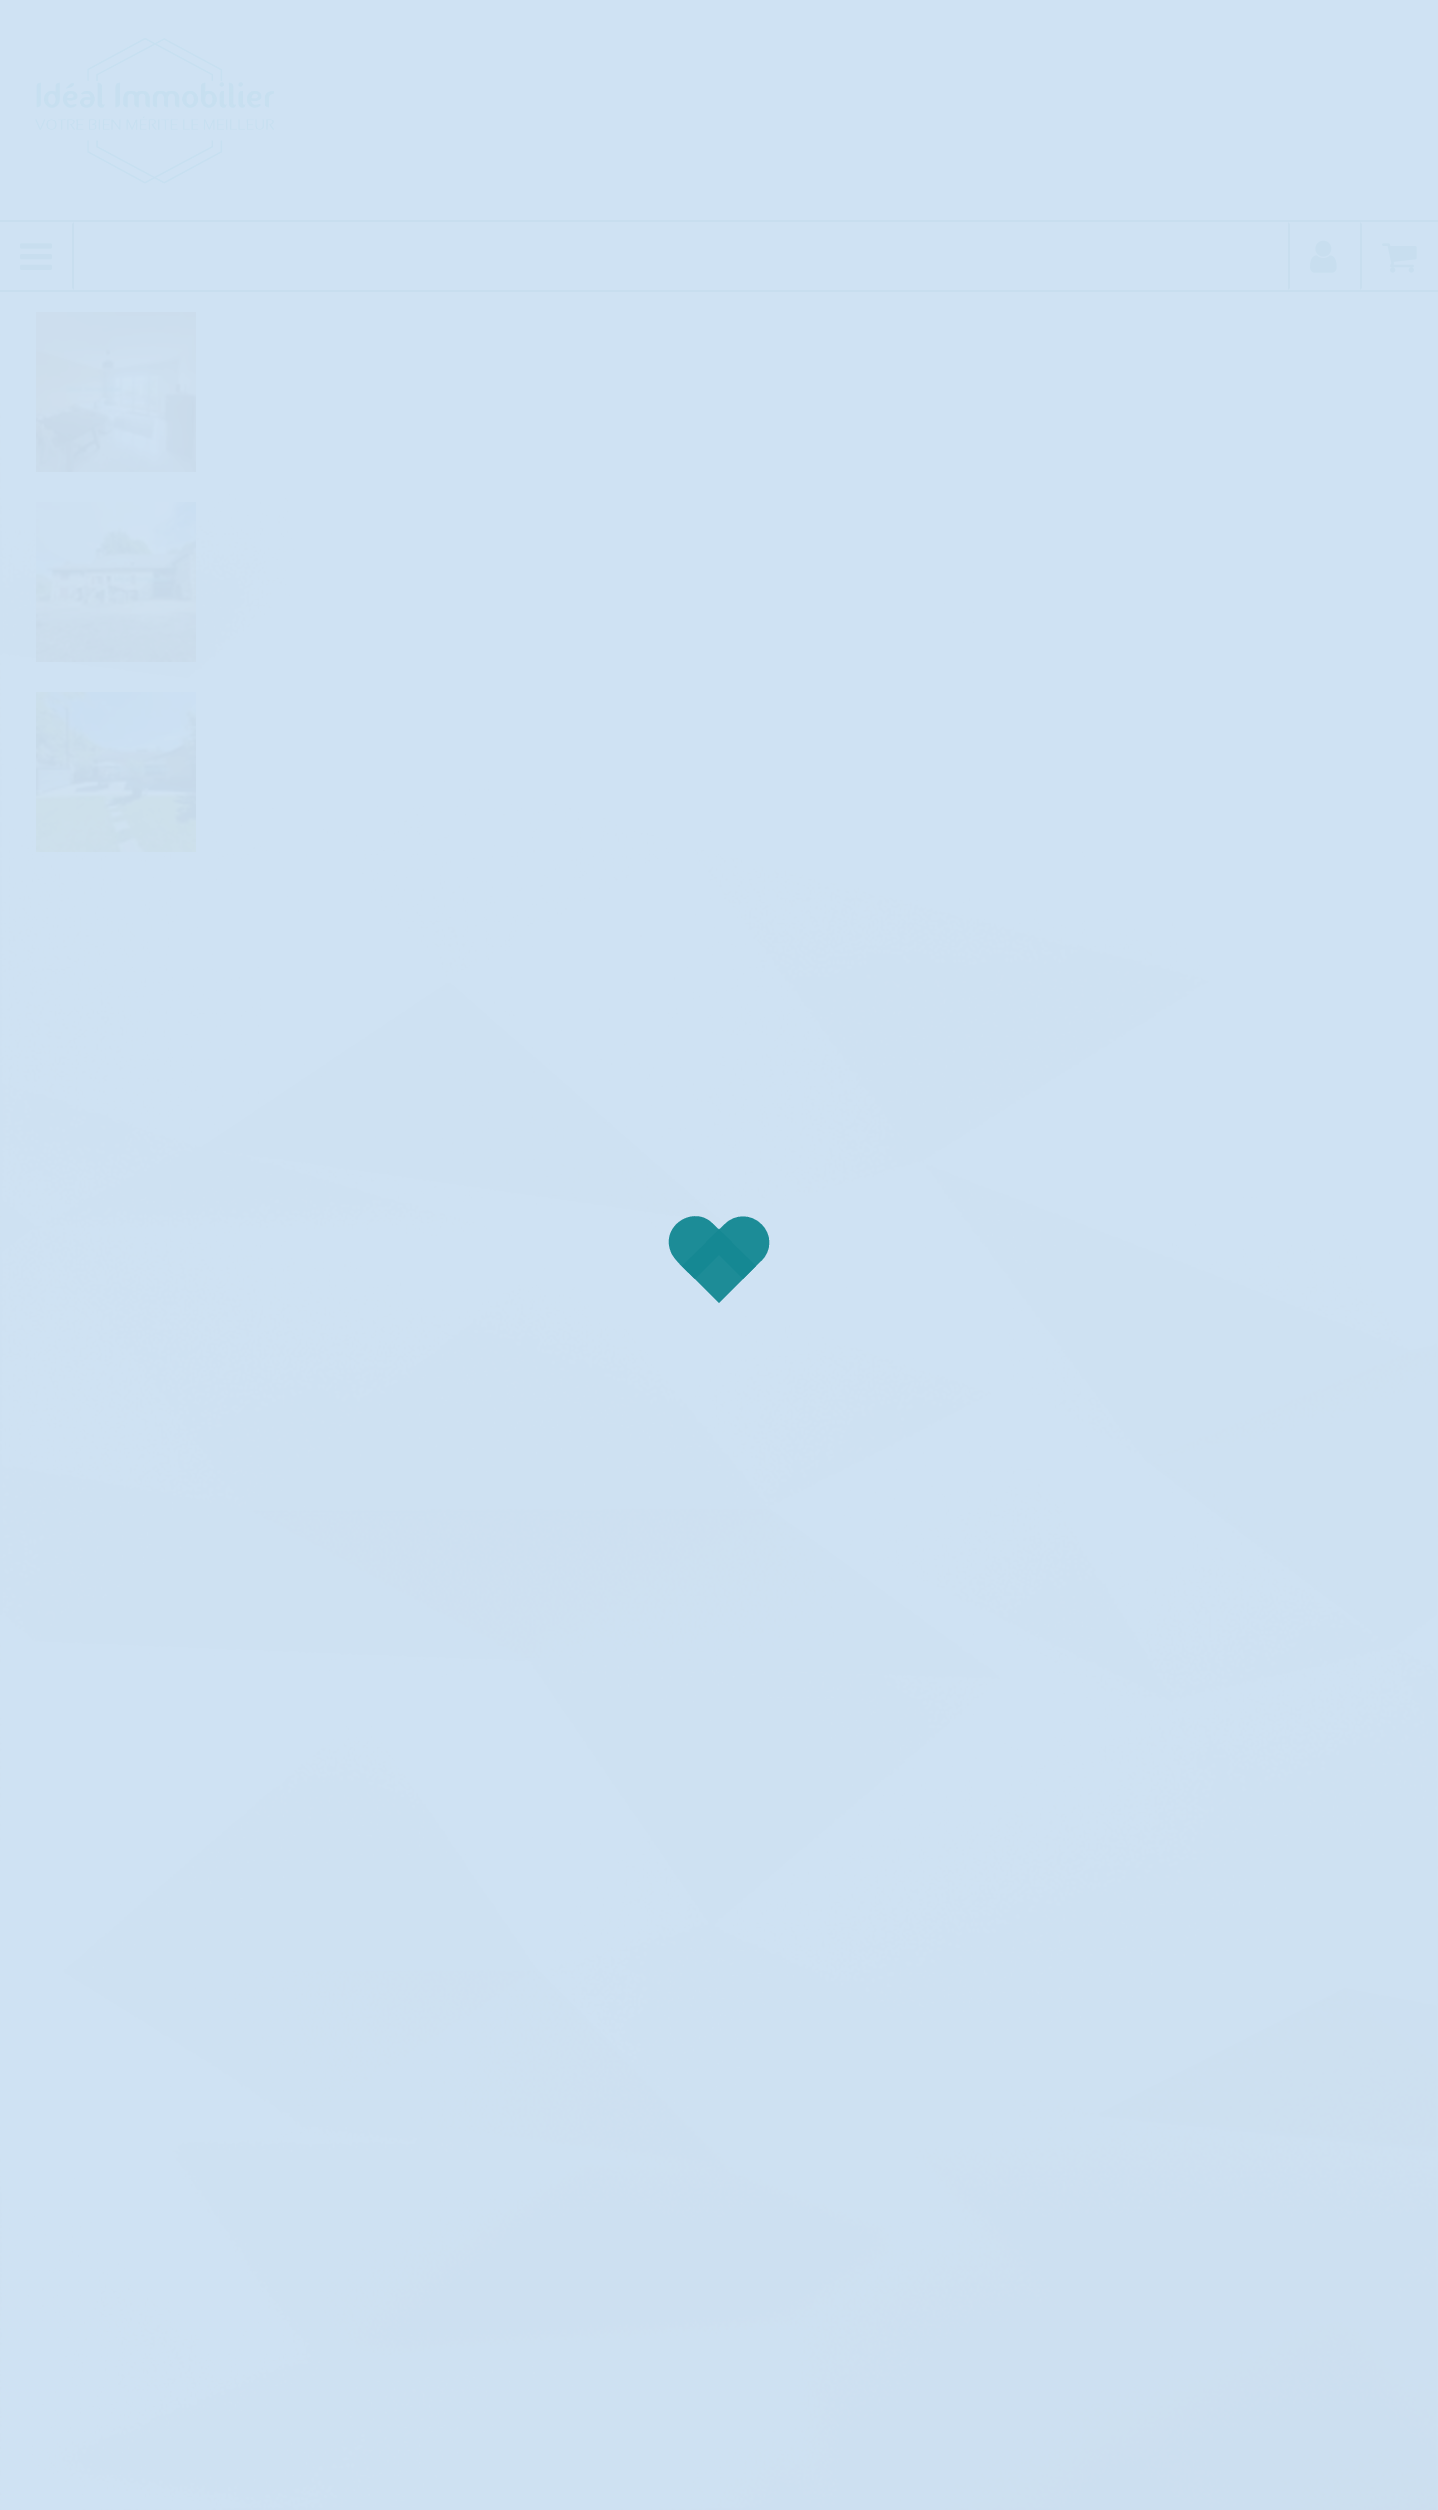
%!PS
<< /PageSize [1438 2510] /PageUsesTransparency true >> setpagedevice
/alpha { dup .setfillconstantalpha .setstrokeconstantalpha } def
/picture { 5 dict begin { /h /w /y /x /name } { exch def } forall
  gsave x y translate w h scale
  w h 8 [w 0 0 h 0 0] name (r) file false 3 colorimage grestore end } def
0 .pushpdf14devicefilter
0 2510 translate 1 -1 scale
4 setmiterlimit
0.812 0.886 0.953 setrgbcolor
0 0 1438 2510 rectfill
(img1.rgb) 0 292 1438 2218 picture
(img2.rgb) 35 38 240 146 picture
0.784 0.871 0.937 setrgbcolor
0 220 1438 2 rectfill
0 290 1438 2 rectfill
newpath 74 222 moveto 74 290 lineto 72 288 lineto 72 224 lineto closepath fill
(img3.rgb) 20 243 32 27 picture
newpath 1288 290 moveto 1288 222 lineto 1290 224 lineto 1290 288 lineto closepath fill
(img4.rgb) 1310 240 27 33 picture
newpath 1360 290 moveto 1360 222 lineto 1362 224 lineto 1362 288 lineto closepath fill
(img5.rgb) 1382 243 35 30 picture
(img6.rgb) 36 312 160 160 picture
(img7.rgb) 36 502 160 160 picture
(img8.rgb) 36 692 160 160 picture
0.114 0.549 0.592 setrgbcolor
newpath 719 1230 moveto 756 1266 lineto 719 1303 lineto 682 1266 lineto closepath fill
0.96 alpha
0.082 0.533 0.576 setrgbcolor
newpath 713 1224 moveto 732 1242 lineto 695 1279 lineto 688 1272 674 1260 671 1252 curveto 660 1226 694 1204 713 1224 curveto closepath fill
newpath 761 1224 moveto 772 1234 772 1251 761 1261 curveto 743 1279 lineto 706 1242 lineto 725 1224 lineto 735 1214 751 1214 761 1224 curveto closepath fill
.poppdf14devicefilter showpage
